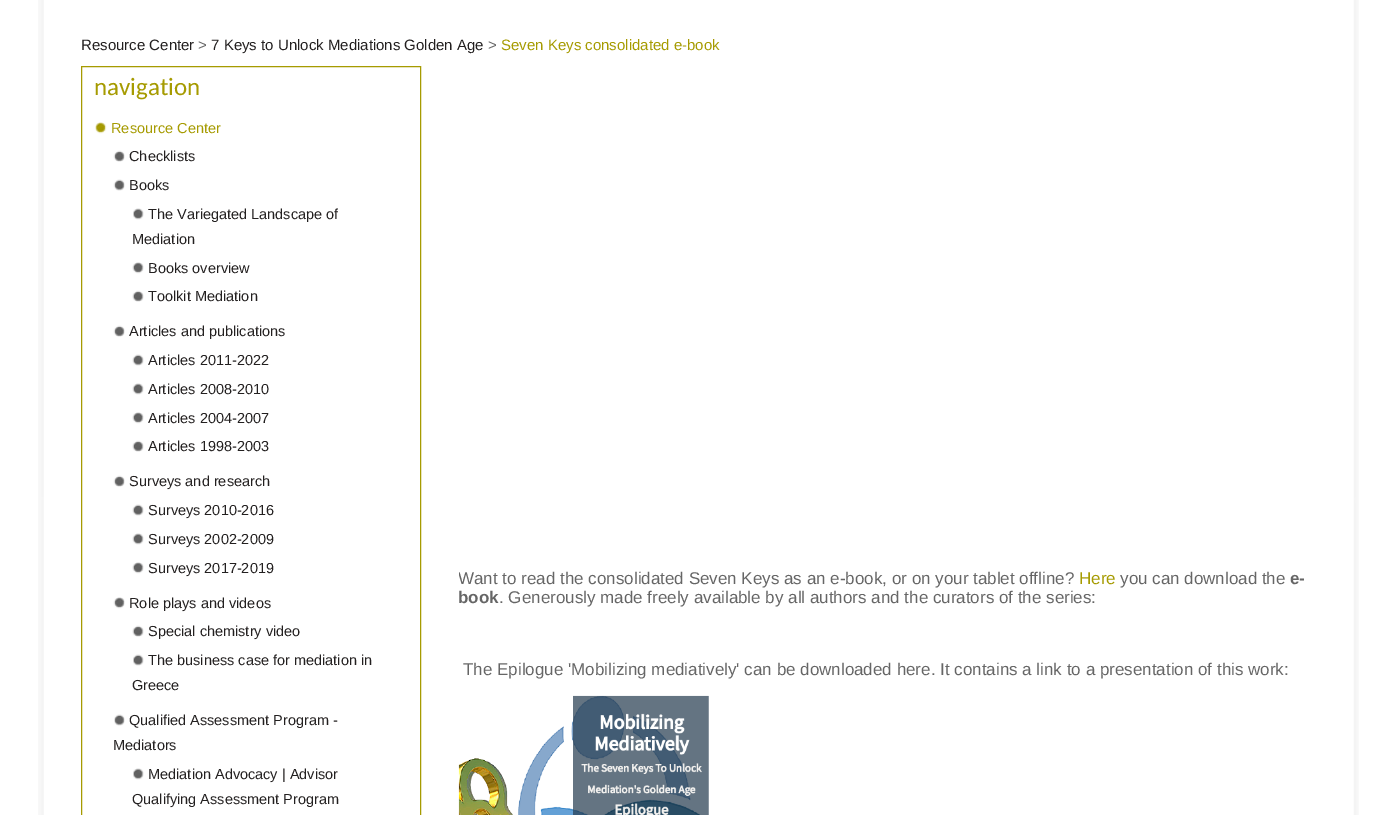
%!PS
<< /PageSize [1394 815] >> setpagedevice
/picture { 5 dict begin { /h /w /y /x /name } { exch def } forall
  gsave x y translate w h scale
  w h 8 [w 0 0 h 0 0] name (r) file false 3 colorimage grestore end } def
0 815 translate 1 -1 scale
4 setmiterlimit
1 setgray
0 0 1394 815 rectfill
(img1.rgb) 38 0 1321 815 picture
/LiberationSans-Regular [15 0 0 -15 0 0] selectfont
0.137 0.125 0.125 setrgbcolor
81 50 moveto (Resource Center) show
0.4 setgray
198 50 moveto (>) show
0.137 0.125 0.125 setrgbcolor
211 50 moveto (7 Keys to Unlock Mediations Golden Age) show
0.4 setgray
488 50 moveto (>) show
0.651 0.608 0.004 setrgbcolor
501 50 moveto (Seven Keys consolidated e-book) show
81.5 66.5 339 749 rectstroke
/Carlito-Regular [25 0 0 -25 0 0] selectfont
94 95 moveto (navigation) show
(img2.rgb) 95 122 12 12 picture
/LiberationSans-Regular [14.5 0 0 -14.5 0 0] selectfont
111 133 moveto (Resource Center) show
(img3.rgb) 113 150 12 12 picture
0.137 0.125 0.125 setrgbcolor
129 161 moveto (Checklists) show
(img4.rgb) 113 179 12 12 picture
129 190 moveto (Books) show
(img5.rgb) 133 208 11 12 picture
148 219 moveto (The Variegated Landscape of) show
132 244 moveto (Mediation) show
(img6.rgb) 132 262 12 12 picture
148 273 moveto (Books overview) show
(img7.rgb) 132 290 12 12 picture
148 301 moveto (Toolkit Mediation) show
(img3.rgb) 113 325 12 12 picture
129 336 moveto (Articles and publications) show
(img8.rgb) 132 354 12 12 picture
148 365 moveto (Articles 2011-2022) show
(img9.rgb) 132 383 12 12 picture
148 394 moveto (Articles 2008-2010) show
(img6.rgb) 132 412 12 12 picture
148 423 moveto (Articles 2004-2007) show
(img7.rgb) 132 440 12 12 picture
148 451 moveto (Articles 1998-2003) show
(img3.rgb) 113 475 12 12 picture
129 486 moveto (Surveys and research) show
(img8.rgb) 132 504 12 12 picture
148 515 moveto (Surveys 2010-2016) show
(img9.rgb) 132 533 12 12 picture
148 544 moveto (Surveys 2002-2009) show
(img6.rgb) 132 562 12 12 picture
148 573 moveto (Surveys 2017-2019) show
(img10.rgb) 113 597 12 12 picture
129 608 moveto (Role plays and videos) show
(img7.rgb) 132 625 12 12 picture
148 636 moveto (Special chemistry video) show
(img11.rgb) 133 654 11 12 picture
148 665 moveto (The business case for mediation in) show
132 690 moveto (Greece) show
(img12.rgb) 114 714 11 12 picture
129 725 moveto (Qualified Assessment Program -) show
113 750 moveto (Mediators) show
(img5.rgb) 133 768 11 12 picture
148 779 moveto (Mediation Advocacy | Advisor) show
132 804 moveto (Qualifying Assessment Program) show
gsave
459 569 875 55 rectclip
/LiberationSans-Regular [17 0 0 -17 0 0] selectfont
0.4 setgray
458 584 moveto (Want to read the consolidated Seven Keys as an e-book, or on your tablet offline?) show
grestore
/LiberationSans-Regular [17 0 0 -17 0 0] selectfont
0.651 0.608 0.004 setrgbcolor
1079 584 moveto (Here) show
0.4 setgray
1120 584 moveto (you can download the) show
/LiberationSans-Bold [17 0 0 -17 0 0] selectfont
1290 584 moveto (e-) show
458 603 moveto (book) show
/LiberationSans-Regular [17 0 0 -17 0 0] selectfont
499 603 moveto (. Generously made freely available by all authors and the curators of the series:) show
463 675 moveto (The Epilogue 'Mobilizing mediatively' can be downloaded here. It contains a link to a presentation of this work:) show
(img13.rgb) 458 695 251 120 picture
showpage
